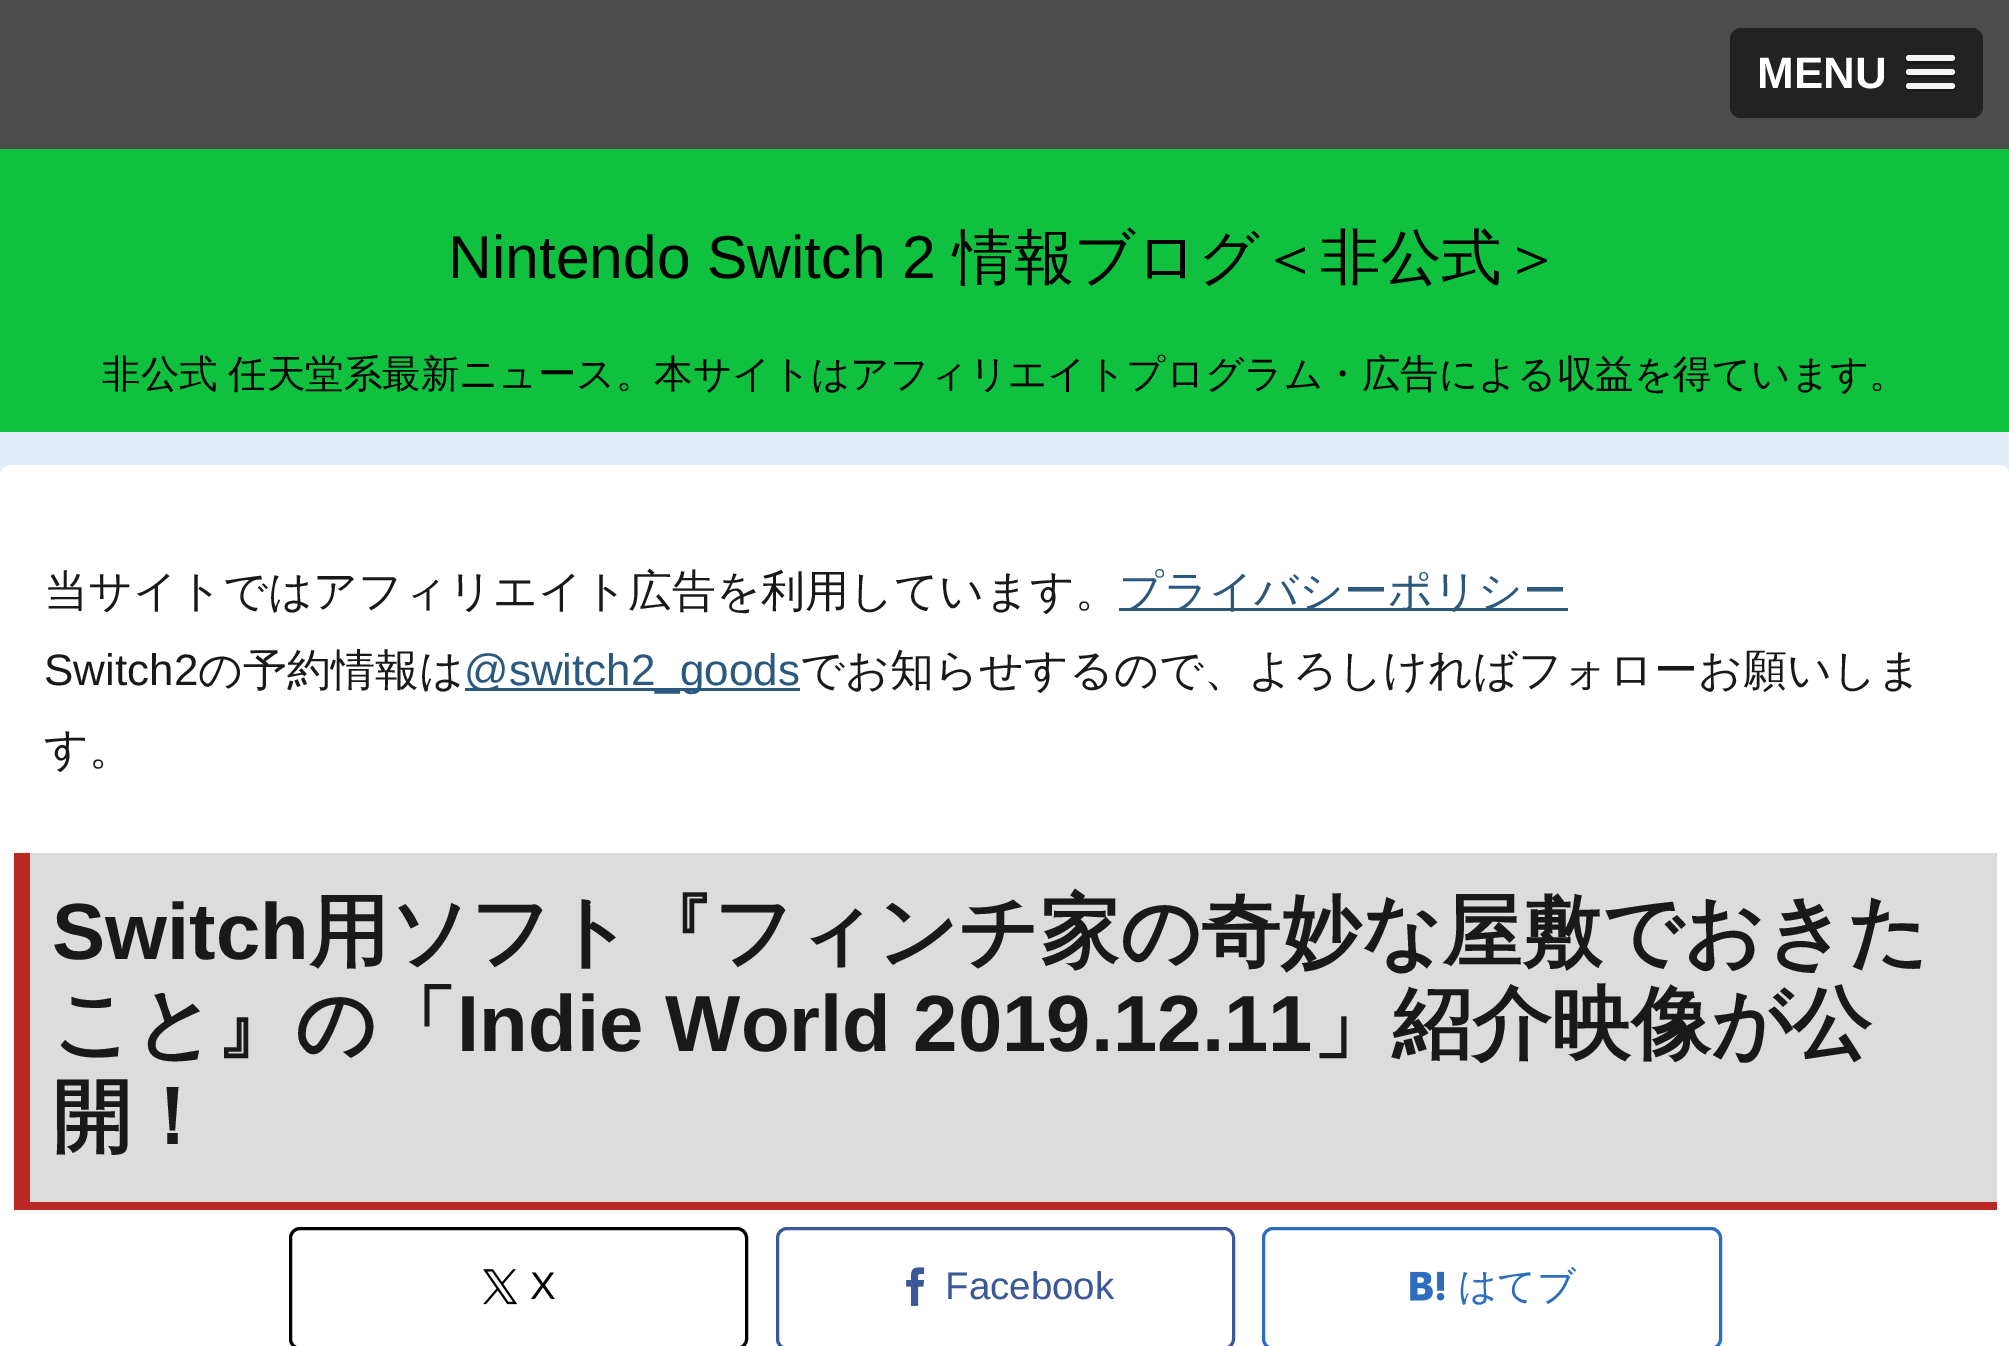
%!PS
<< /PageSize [2009 1346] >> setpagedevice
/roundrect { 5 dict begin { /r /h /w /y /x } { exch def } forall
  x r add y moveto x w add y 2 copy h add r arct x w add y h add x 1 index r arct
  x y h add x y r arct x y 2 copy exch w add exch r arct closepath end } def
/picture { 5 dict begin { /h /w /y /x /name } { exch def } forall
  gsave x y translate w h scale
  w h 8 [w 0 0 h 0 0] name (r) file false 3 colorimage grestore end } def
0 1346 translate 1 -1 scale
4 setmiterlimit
0.89 0.929 0.969 setrgbcolor
0 0 2009 1346 rectfill
0.298 setgray
0 0 2009 149 rectfill
0.133 setgray
1730 28 253 90 11 roundrect fill
/LiberationSans-Bold [44 0 0 -44 0 0] selectfont
1 setgray
1757 88 moveto (MENU) show
0.102 setgray
newpath 1906 60 moveto 1903 65 1915 64 1916 64 curveto 1945 64 lineto 1946 64 1958 65 1955 60 curveto 1953 60 lineto 1908 60 lineto closepath fill
0.961 setgray
1906 55 49 6 3 roundrect fill
0.102 setgray
newpath 1906 73 moveto 1903 79 1915 78 1916 78 curveto 1945 78 lineto 1946 78 1958 79 1955 73 curveto 1953 74 lineto 1908 74 lineto closepath fill
0.961 setgray
1906 69 49 6 3 roundrect fill
0.102 setgray
newpath 1906 87 moveto 1904 92 1915 91 1916 91 curveto 1945 91 lineto 1946 91 1957 92 1955 87 curveto 1953 88 lineto 1908 88 lineto closepath fill
0.961 setgray
1906 83 49 6 3 roundrect fill
0.059 0.757 0.247 setrgbcolor
0 149 2009 283 rectfill
/LiberationSans-Regular [60.5 0 0 -60.5 0 0] selectfont
0 setgray
448 278 moveto (Nintendo Switch 2) show
/WenQuanYiZenHei-Medium [60.5 0 0 -60.5 0 0] selectfont
953 278 moveto (情報ブログ＜非公式＞) show
/WenQuanYiZenHei-Medium [38.5 0 0 -38.5 0 0] selectfont
102 387 moveto -1 0 32 (非公式 任天堂系最新ニュース。本サイトはアフィリエイトプログラム・広告による収益を得ています。) widthshow
1 setgray
0 465 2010 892 11 roundrect fill
/WenQuanYiZenHei-Medium [44 0 0 -44 0 0] selectfont
0.098 setgray
44 606 moveto (当サイトではアフィリエイト広告を利用しています。) show
0.169 0.349 0.49 setrgbcolor
1119 608 449 3 rectfill
1119 606 moveto (プライバシーポリシー) show
/LiberationSans-Regular [44 0 0 -44 0 0] selectfont
0.098 setgray
44 685 moveto (Switch2) show
/WenQuanYiZenHei-Medium [44 0 0 -44 0 0] selectfont
198 685 moveto (の予約情報は) show
0.169 0.349 0.49 setrgbcolor
465 688 335 3 rectfill
/LiberationSans-Regular [44 0 0 -44 0 0] selectfont
464 685 moveto (@switch2_goods) show
/WenQuanYiZenHei-Medium [44 0 0 -44 0 0] selectfont
0.098 setgray
800 685 moveto (でお知らせするので、よろしければフォローお願いしま) show
44 764 moveto (す。) show
0.863 setgray
30 853 1967 349 rectfill
0.729 0.157 0.137 setrgbcolor
30 1202 1967 8 rectfill
14 853 16 357 rectfill
/LiberationSans-Bold [79.75 0 0 -79.75 0 0] selectfont
0.098 setgray
52 959 moveto (Switch) show
/WenQuanYiZenHei-Bold [79.75 0 0 -79.75 0 0] selectfont
309 959 moveto (用ソフト『フィンチ家の奇妙な屋敷でおきた) show
52 1051 moveto (こと』の「) show
/LiberationSans-Bold [79.75 0 0 -79.75 0 0] selectfont
457 1051 moveto (Indie World 2019.12.11) show
/WenQuanYiZenHei-Bold [79.75 0 0 -79.75 0 0] selectfont
1312 1051 moveto (」紹介映像が公) show
52 1144 moveto (開！) show
0 setgray
3 setlinewidth
290.5 1228.5 456 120 9.5 roundrect stroke
(img1.rgb) 483 1269 35 36 picture
/LiberationSans-Regular [38.5 0 0 -38.5 0 0] selectfont
530 1299 moveto (X) show
0.231 0.349 0.596 setrgbcolor
777.5 1228.5 456 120 9.5 roundrect stroke
(img2.rgb) 906 1267 19 39 picture
945 1299 moveto (Facebook) show
0.173 0.431 0.741 setrgbcolor
1263.5 1228.5 457 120 9.5 roundrect stroke
(img3.rgb) 1410 1271 35 30 picture
/WenQuanYiZenHei-Medium [38.5 0 0 -38.5 0 0] selectfont
1458 1299 moveto (はてブ) show
showpage
